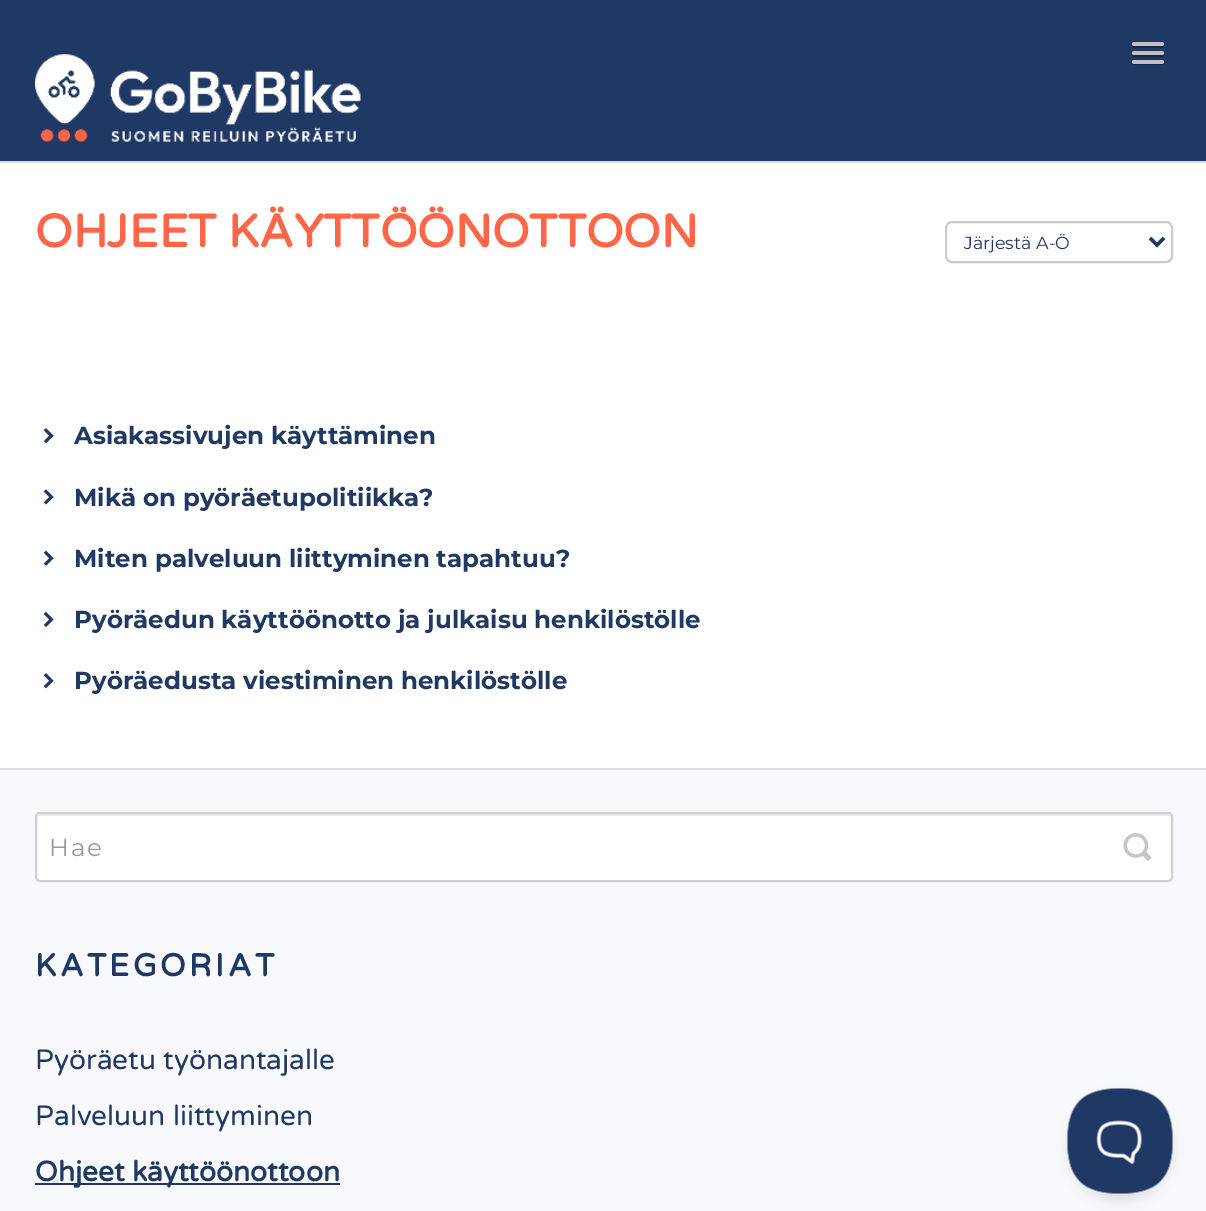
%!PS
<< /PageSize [1206 1211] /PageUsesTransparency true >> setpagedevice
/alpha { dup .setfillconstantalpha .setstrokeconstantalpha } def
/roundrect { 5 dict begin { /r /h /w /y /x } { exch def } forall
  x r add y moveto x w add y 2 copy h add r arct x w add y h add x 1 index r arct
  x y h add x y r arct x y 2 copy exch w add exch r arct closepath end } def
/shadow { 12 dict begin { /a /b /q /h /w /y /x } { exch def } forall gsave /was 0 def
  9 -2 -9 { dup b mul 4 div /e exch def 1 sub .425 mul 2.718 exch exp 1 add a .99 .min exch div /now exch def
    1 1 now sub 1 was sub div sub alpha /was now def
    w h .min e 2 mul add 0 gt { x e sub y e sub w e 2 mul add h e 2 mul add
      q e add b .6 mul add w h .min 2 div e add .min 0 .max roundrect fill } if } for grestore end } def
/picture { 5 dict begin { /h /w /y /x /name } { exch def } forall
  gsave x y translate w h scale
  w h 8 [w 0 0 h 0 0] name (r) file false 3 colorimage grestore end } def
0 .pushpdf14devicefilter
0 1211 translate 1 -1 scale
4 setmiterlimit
0.973 0.976 0.988 setrgbcolor
0 0 1206 1211 rectfill
0.125 0.22 0.392 setrgbcolor
0 0 1206 161 rectfill
(img1.rgb) 35 54 326 88 picture
0.094 0.165 0.294 setrgbcolor
newpath 1132.5 44.5 moveto 1131.5 46 1132 47.5 1133.5 48 curveto 1162.5 48 lineto 1164 47.5 1164.5 46 1163.5 44.5 curveto 1162 45.5 lineto 1134 45.5 lineto closepath fill
0.753 setgray
1132 42 32 4 2 roundrect fill
0.094 0.165 0.294 setrgbcolor
newpath 1132.5 53.5 moveto 1131.5 54.5 1132 56 1133 56.5 curveto 1134 57.5 1158.5 57 1162 57 curveto 1164 57 1164.5 55 1163.5 53.5 curveto 1162 54 lineto 1134 54 lineto closepath fill
0.753 setgray
1132 51 32 4 2 roundrect fill
0.094 0.165 0.294 setrgbcolor
newpath 1132.5 62 moveto 1132 63.5 lineto 1132.5 66 1137.5 65 1138.5 65 curveto 1157.5 65 lineto 1158.5 65 1163.5 66 1164 63.5 curveto 1163.5 62 lineto 1163.5 62.5 1163 63 1162 63 curveto 1134 63 lineto 1133 63 1132.5 62.5 1132.5 62 curveto closepath fill
0.753 setgray
1132 60 32 4 2 roundrect fill
1 setgray
0 163 1206 605 rectfill
0.871 setgray
0 161 1206 2 rectfill
0 768 1206 2 rectfill
/VarelaRound-Bold [46.25 0 0 -46.25 0 0] selectfont
1 0.4 0.278 setrgbcolor
35 247 moveto (OHJEET KÄYTTÖÖNOTTOON) show
0.8 setgray
2 setlinewidth
946 222 226 40 6 roundrect stroke
0.125 0.22 0.392 setrgbcolor
3.5 setlinewidth
newpath 1150 238 moveto 1157 245 lineto 1164 238 lineto stroke
/Montserrat-Regular [17.5 0 0 -17.5 0 0] selectfont
964 249 moveto (Järjestä A-Ö) show
(img2.rgb) 43 428 11 16 picture
/Montserrat-Bold [24.5 0 0 -24.5 0 0] selectfont
74 444 moveto (Asiakassivujen käyttäminen) show
(img3.rgb) 43 489 11 16 picture
74 506 moveto (Mikä on pyöräetupolitiikka?) show
(img4.rgb) 43 550 11 16 picture
74 567 moveto (Miten palveluun liittyminen tapahtuu?) show
(img5.rgb) 43 611 11 16 picture
74 628 moveto (Pyöräedun käyttöönotto ja julkaisu henkilöstölle) show
(img2.rgb) 43 673 11 16 picture
74 689 moveto (Pyöräedusta viestiminen henkilöstölle) show
1 setgray
35 812 1138 70 5 roundrect fill
0.925 setgray
newpath 40 816 moveto 1167 816 lineto 1169 816 1171 817 1171 819 curveto 1171 816 1170 814 1167 814 curveto 41 814 lineto 38 814 37 816 37 819 curveto 37 817 38 816 40 816 curveto closepath fill
0.816 setgray
2 setlinewidth
36 813 1136 68 4 roundrect stroke
/Montserrat-Regular [24.5 0 0 -24.5 0 0] selectfont
0.6 setgray
49 856 moveto 2 0 (Hae) ashow
(img6.rgb) 1123 833 29 28 picture
/VarelaRound-Bold [31.5 0 0 -31.5 0 0] selectfont
0.125 0.22 0.392 setrgbcolor
35 976 moveto 3.5 0 (KATEGORIAT) ashow
/VarelaRound-Regular [28 0 0 -28 0 0] selectfont
35 1069 moveto (Pyöräetu työnantajalle) show
35 1125 moveto (Palveluun liittyminen) show
35 1183 305 2 rectfill
/VarelaRound-Bold [28 0 0 -28 0 0] selectfont
35 1181 moveto (Ohjeet käyttöönottoon) show
0 setgray
1068 1096 105 105 52.5 6 0.1 shadow
(img7.rgb) 1067 1088 106 106 picture
.poppdf14devicefilter showpage
